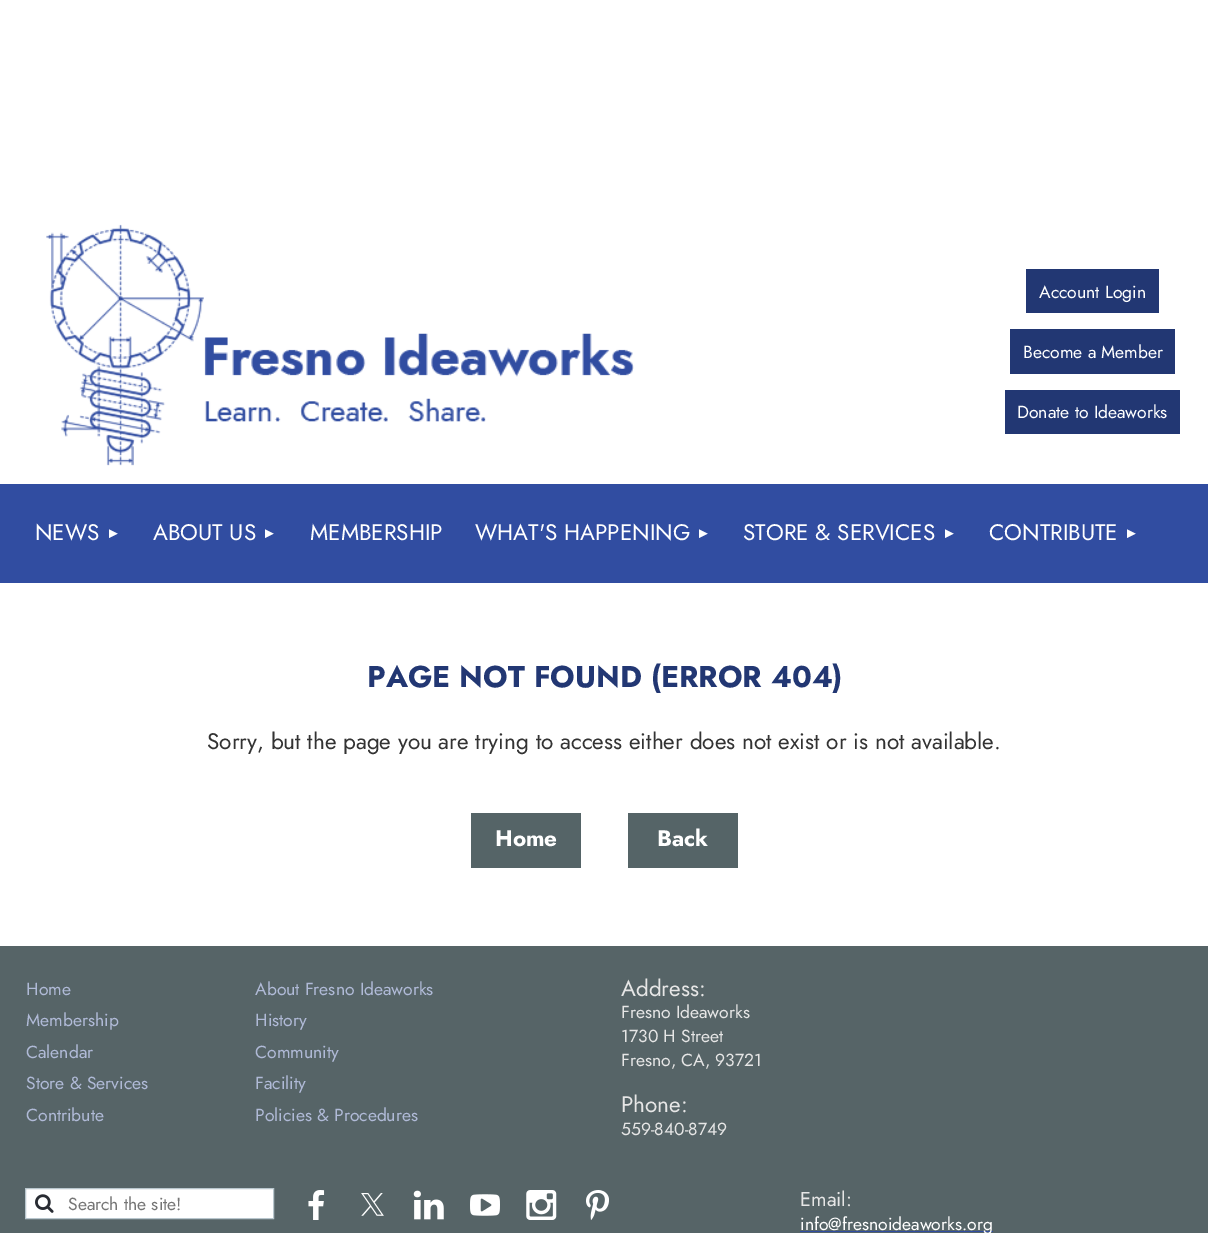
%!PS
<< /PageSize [1208 1233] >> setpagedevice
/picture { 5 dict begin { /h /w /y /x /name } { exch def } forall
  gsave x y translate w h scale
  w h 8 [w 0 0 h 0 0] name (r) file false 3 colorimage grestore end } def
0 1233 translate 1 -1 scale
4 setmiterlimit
1 setgray
0 0 1208 1233 rectfill
(img1.rgb) 46 224 588 242 picture
0.133 0.216 0.451 setrgbcolor
1026 269 133 44 rectfill
/Jost-Regular [17.5 0 0 -17.5 0 0] selectfont
1 setgray
1039 298 moveto (Account Login) show
0.133 0.216 0.451 setrgbcolor
1010 329 165 45 rectfill
1 setgray
1023 358 moveto (Become a Member) show
0.133 0.216 0.451 setrgbcolor
1005 390 175 44 rectfill
1 setgray
1017 418 moveto (Donate to Ideaworks) show
0.192 0.302 0.631 setrgbcolor
0 484 1208 99 rectfill
/Jost-Regular [22.5 0 0 -22.5 0 0] selectfont
1 setgray
35 540 moveto (NEWS) show
/LiberationSans-Regular [15 0 0 -15 0 0] selectfont
106 538 moveto (►) show
/Jost-Regular [22.5 0 0 -22.5 0 0] selectfont
153 540 moveto (ABOUT US) show
/LiberationSans-Regular [15 0 0 -15 0 0] selectfont
262 538 moveto (►) show
/Jost-Regular [22.5 0 0 -22.5 0 0] selectfont
310 540 moveto (MEMBERSHIP) show
475 540 moveto (WHAT'S HAPPENING) show
/LiberationSans-Regular [15 0 0 -15 0 0] selectfont
696 538 moveto (►) show
/Jost-Regular [22.5 0 0 -22.5 0 0] selectfont
743 540 moveto (STORE & SERVICES) show
/LiberationSans-Regular [15 0 0 -15 0 0] selectfont
942 538 moveto (►) show
/Jost-Regular [22.5 0 0 -22.5 0 0] selectfont
989 540 moveto (CONTRIBUTE) show
/LiberationSans-Regular [15 0 0 -15 0 0] selectfont
1124 538 moveto (►) show
/Jost-Bold [30 0 0 -30 0 0] selectfont
0.133 0.216 0.451 setrgbcolor
367 687 moveto (PAGE NOT FOUND \(ERROR 404\)) show
/Jost-Regular [22.5 0 0 -22.5 0 0] selectfont
0.2 setgray
207 749 moveto (Sorry, but the page you are trying to access either does not exist or is not available.) show
0.333 0.392 0.404 setrgbcolor
471 813 110 55 rectfill
/Jost-Bold [22.5 0 0 -22.5 0 0] selectfont
1 setgray
495 846 moveto (Home) show
0.333 0.392 0.404 setrgbcolor
628 813 110 55 rectfill
1 setgray
657 846 moveto (Back) show
0.337 0.392 0.404 setrgbcolor
0 946 1208 287 rectfill
/Jost-Regular [17.5 0 0 -17.5 0 0] selectfont
0.69 0.729 0.843 setrgbcolor
26 995 moveto (Home) show
255 995 moveto (About Fresno Ideaworks) show
26 1026 moveto (Membership) show
255 1026 moveto (History) show
26 1058 moveto (Calendar) show
255 1058 moveto (Community) show
26 1089 moveto (Store & Services) show
255 1089 moveto (Facility) show
26 1121 moveto (Contribute) show
255 1121 moveto (Policies & Procedures) show
/Jost-Regular [22.5 0 0 -22.5 0 0] selectfont
0.902 setgray
621 996 moveto (Address:) show
/Jost-Regular [17.5 0 0 -17.5 0 0] selectfont
621 1018 moveto (Fresno Ideaworks) show
621 1042 moveto (1730 H Street) show
621 1066 moveto (Fresno, CA, 93721) show
/Jost-Regular [22.5 0 0 -22.5 0 0] selectfont
621 1112 moveto (Phone:) show
/Jost-Regular [17.5 0 0 -17.5 0 0] selectfont
621 1135 moveto (559-840-8749) show
1 setgray
newpath 25.5 1188.5 moveto 273.5 1188.5 lineto 273.5 1218.5 lineto 25.5 1218.5 lineto closepath gsave fill grestore
0.722 0.776 0.804 setrgbcolor
stroke
(img2.rgb) 35 1194 19 19 picture
0.459 setgray
68 1210 moveto (Search the site!) show
(img3.rgb) 308 1190 17 30 picture
(img4.rgb) 361 1193 23 23 picture
(img5.rgb) 413 1190 31 30 picture
(img6.rgb) 470 1194 30 22 picture
(img7.rgb) 526 1190 31 30 picture
(img8.rgb) 586 1190 23 30 picture
/Jost-Regular [20 0 0 -20 0 0] selectfont
0.902 setgray
800 1206 moveto (Email:) show
0.192 0.302 0.631 setrgbcolor
800 1231 193 1 rectfill
/Jost-Regular [17.5 0 0 -17.5 0 0] selectfont
1 setgray
800 1230 moveto (info@fresnoideaworks.org) show
showpage
